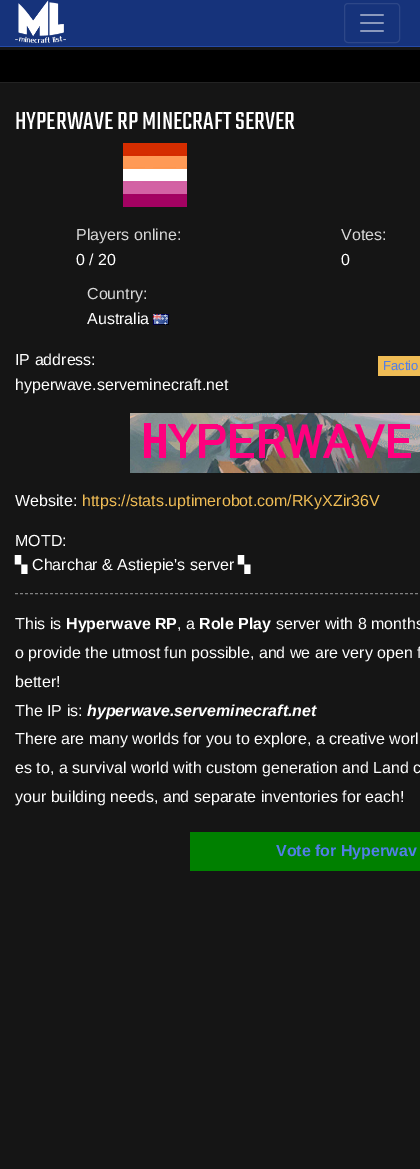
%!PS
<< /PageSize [420 1169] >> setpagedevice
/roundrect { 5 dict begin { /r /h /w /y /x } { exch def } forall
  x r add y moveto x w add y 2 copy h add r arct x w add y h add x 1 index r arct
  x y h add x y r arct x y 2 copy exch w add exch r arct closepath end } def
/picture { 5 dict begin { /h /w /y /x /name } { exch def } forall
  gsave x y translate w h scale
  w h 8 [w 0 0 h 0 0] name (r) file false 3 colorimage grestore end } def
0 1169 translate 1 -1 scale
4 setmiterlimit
0.082 setgray
0 0 420 1169 rectfill
0.086 0.2 0.482 setrgbcolor
0 0 420 46 rectfill
0.149 0.294 0.651 setrgbcolor
0 46 420 1 rectfill
(img1.rgb) 15 0 51 43 picture
0.176 0.278 0.533 setrgbcolor
344.5 3.5 55 39 3.5 roundrect stroke
(img2.rgb) 360 14 24 18 picture
0 setgray
0 50 420 32 rectfill
0.137 setgray
0 82 420 1 rectfill
/Teko-Regular [27.25 0 0 -27.25 0 0] selectfont
1 setgray
15 129 moveto (HYPERWAVE RP MINECRAFT SERVER) show
(img3.rgb) 123 143 64 64 picture
/LiberationSans-Regular [16 0 0 -16 0 0] selectfont
0.847 setgray
76 240 moveto (Players online:) show
1 setgray
76 265 moveto (0 / 20) show
0.847 setgray
341 240 moveto (Votes:) show
1 setgray
341 265 moveto (0) show
0.847 setgray
87 299 moveto (Country:) show
1 setgray
87 324 moveto (Australia) show
(img4.rgb) 153 314 16 11 picture
15 365 moveto (IP address:) show
15 390 moveto (hyperwave.serveminecraft.net) show
0.937 0.737 0.333 setrgbcolor
378 356 42 20 rectfill
/LiberationSans-Regular [13 0 0 -13 0 0] selectfont
0.322 0.494 0.914 setrgbcolor
383 370 moveto (Factio) show
(img5.rgb) 130 413 290 60 picture
/LiberationSans-Regular [16 0 0 -16 0 0] selectfont
1 setgray
15 506 moveto (Website:) show
0.937 0.737 0.333 setrgbcolor
82 506 moveto (https://stats.uptimerobot.com/RKyXZir36V) show
1 setgray
15 546 moveto (MOTD:) show
/DejaVuSans-Regular [16 0 0 -16 0 0] selectfont
15 570 moveto (▚) show
/LiberationSans-Regular [16 0 0 -16 0 0] selectfont
32 570 moveto (Charchar & Astiepie's server) show
/DejaVuSans-Regular [16 0 0 -16 0 0] selectfont
238 570 moveto (▚) show
0.502 setgray
[3 2] 0 setdash
newpath 15 593.5 moveto 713 593.5 lineto stroke
/LiberationSans-Regular [16 0 0 -16 0 0] selectfont
1 setgray
15 629 moveto (This is) show
/LiberationSans-Bold [16 0 0 -16 0 0] selectfont
66 629 moveto (Hyperwave RP) show
/LiberationSans-Regular [16 0 0 -16 0 0] selectfont
177 629 moveto (, a) show
/LiberationSans-Bold [16 0 0 -16 0 0] selectfont
199 629 moveto (Role Play) show
/LiberationSans-Regular [16 0 0 -16 0 0] selectfont
276 629 moveto (server with 8 months) show
15 658 moveto (o provide the utmost fun possible, and we are very open f) show
15 687 moveto (better!) show
15 716 moveto (The IP is:) show
/LiberationSans-BoldItalic [16 0 0 -16 0 0] selectfont
87 716 moveto (hyperwave.serveminecraft.net) show
/LiberationSans-Regular [16 0 0 -16 0 0] selectfont
15 744 moveto (There are many worlds for you to explore, a creative worl) show
15 773 moveto (es to, a survival world with custom generation and Land c) show
15 802 moveto (your building needs, and separate inventories for each!) show
0 0.502 0 setrgbcolor
190 832 230 39 rectfill
/LiberationSans-Bold [16 0 0 -16 0 0] selectfont
0.322 0.494 0.914 setrgbcolor
276 856 moveto (Vote for Hyperwav) show
showpage
